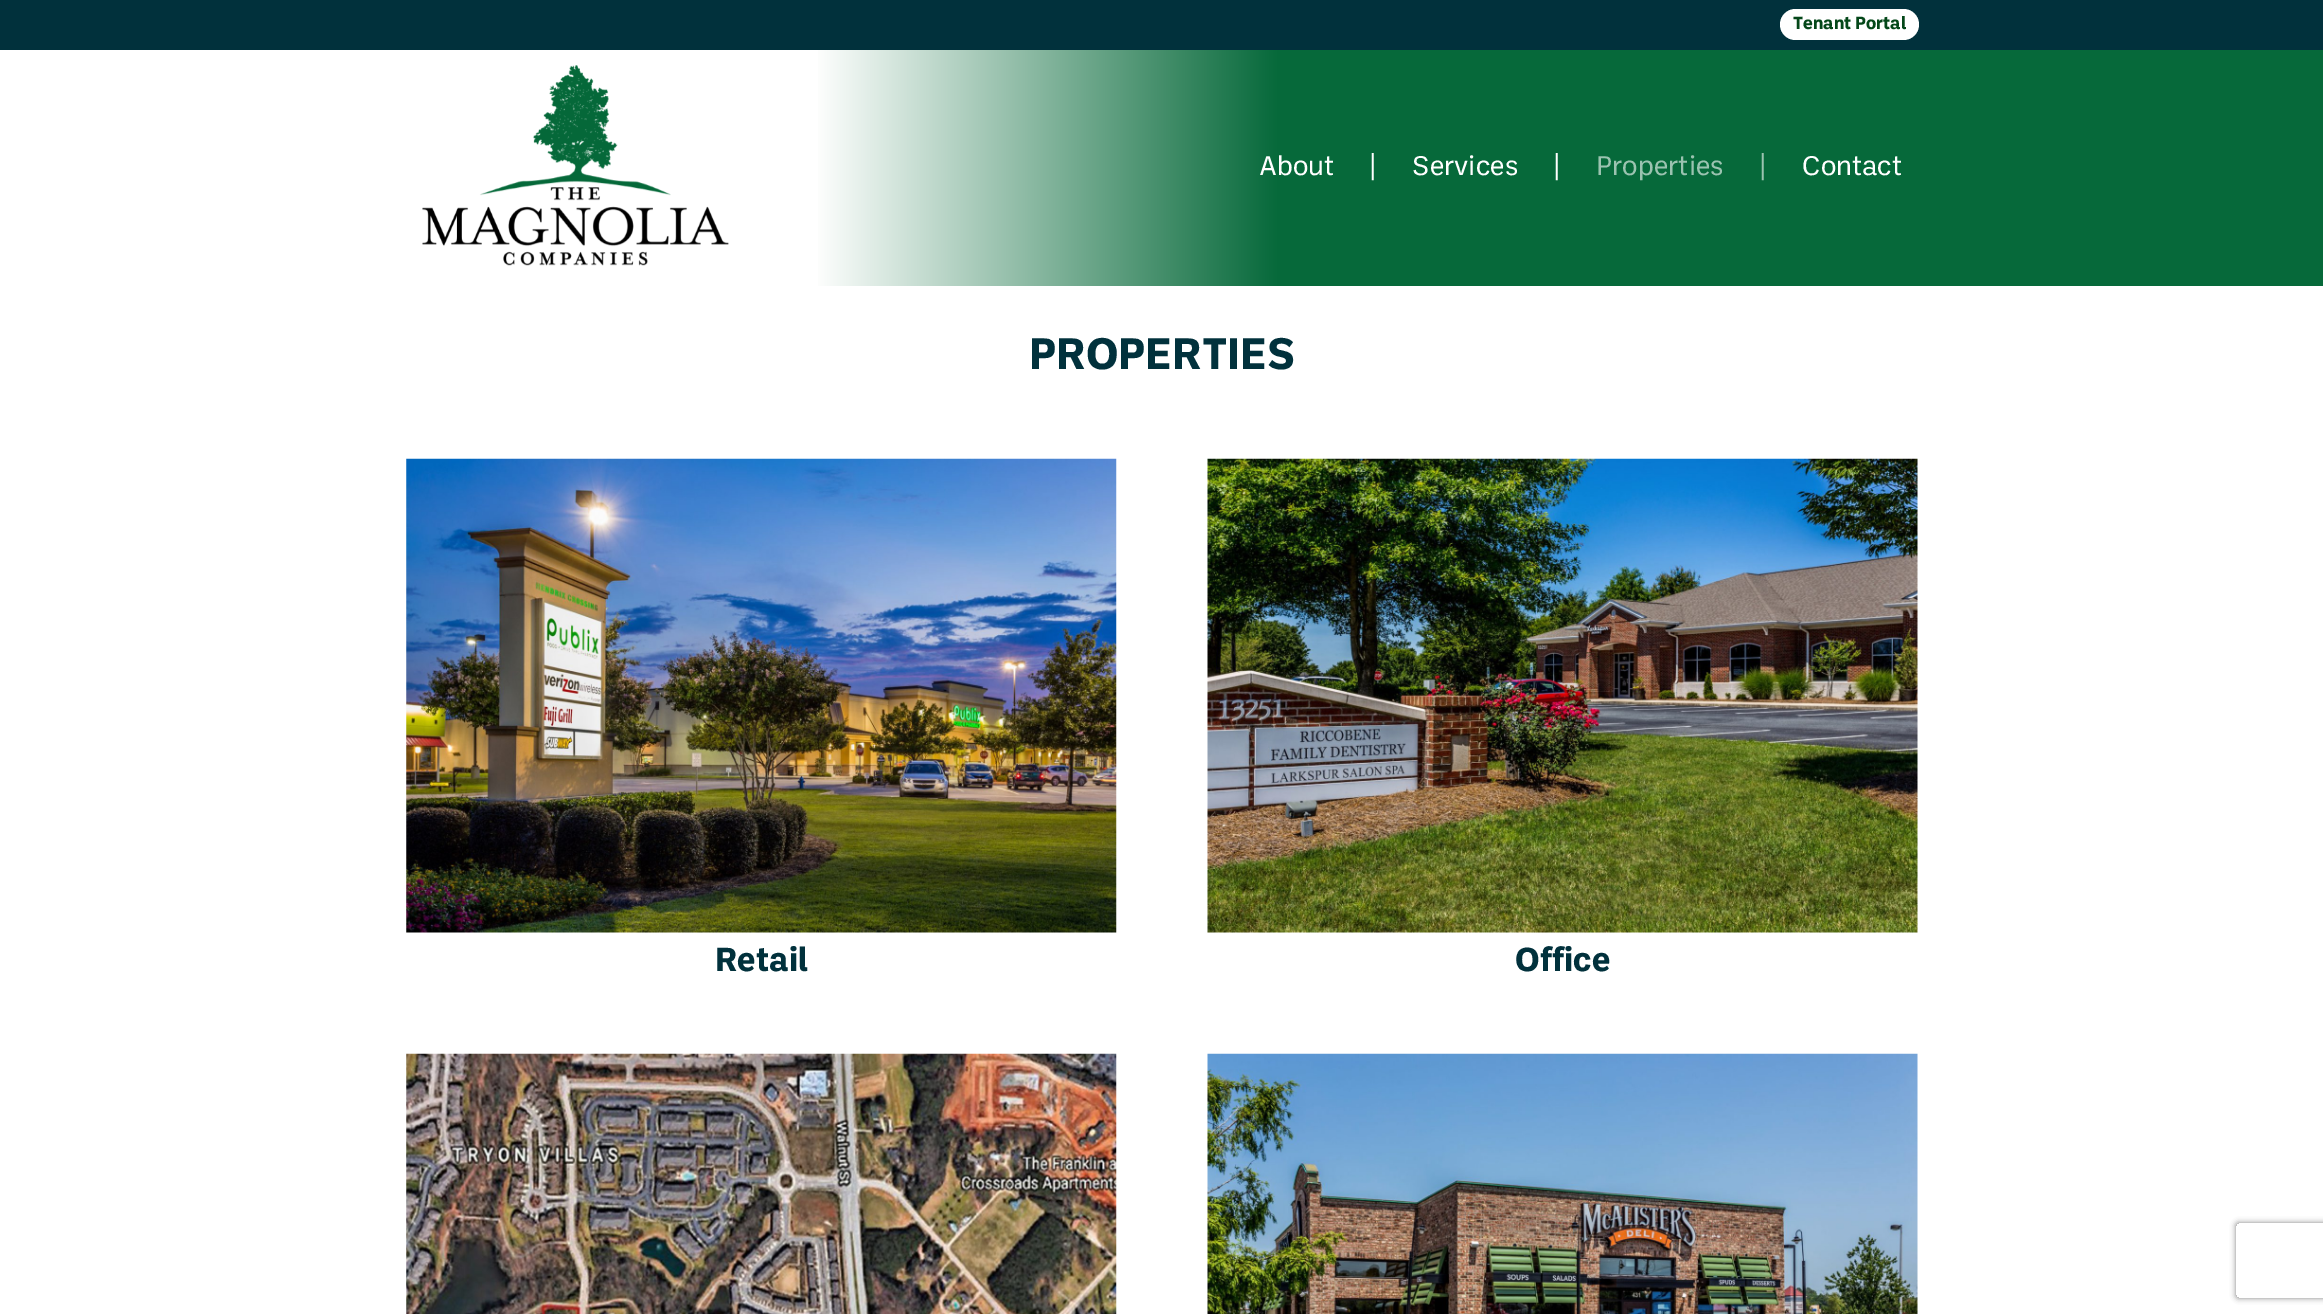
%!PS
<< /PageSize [2323 1314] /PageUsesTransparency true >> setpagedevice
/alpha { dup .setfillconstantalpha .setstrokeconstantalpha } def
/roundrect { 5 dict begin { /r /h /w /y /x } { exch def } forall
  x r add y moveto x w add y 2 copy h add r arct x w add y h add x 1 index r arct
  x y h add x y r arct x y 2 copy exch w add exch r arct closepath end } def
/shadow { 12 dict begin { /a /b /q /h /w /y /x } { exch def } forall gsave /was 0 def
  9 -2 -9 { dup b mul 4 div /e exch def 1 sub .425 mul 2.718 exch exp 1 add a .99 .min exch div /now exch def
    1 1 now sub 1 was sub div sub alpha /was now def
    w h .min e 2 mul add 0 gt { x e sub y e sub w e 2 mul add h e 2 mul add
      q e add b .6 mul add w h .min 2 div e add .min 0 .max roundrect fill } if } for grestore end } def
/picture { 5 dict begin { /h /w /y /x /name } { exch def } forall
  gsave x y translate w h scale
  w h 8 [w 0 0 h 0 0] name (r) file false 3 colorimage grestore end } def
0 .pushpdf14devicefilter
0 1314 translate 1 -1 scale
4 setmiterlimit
1 setgray
0 0 2323 1314 rectfill
0.004 0.192 0.235 setrgbcolor
0 0 2323 50 rectfill
1 setgray
1780 9 139 31 15.5 roundrect fill
/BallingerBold-Bold [18 0 0 -18 0 0] selectfont
0.016 0.278 0.098 setrgbcolor
1793 29 moveto (Tenant Portal) show
gsave newpath 818 50 moveto 2323 50 lineto 2323 286 lineto 818 286 lineto closepath clip newpath
<< /ShadingType 2 /ColorSpace /DeviceRGB /Coords [0 168 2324 168] /Extend [true true] /Function << /FunctionType 3 /Domain [0 1] /Functions [<< /FunctionType 2 /Domain [0 1] /C0 [1 1 1] /C1 [1 1 1] /N 1 >> << /FunctionType 2 /Domain [0 1] /C0 [1 1 1] /C1 [0.024 0.412 0.227] /N 1 >> << /FunctionType 2 /Domain [0 1] /C0 [0.024 0.412 0.227] /C1 [0.024 0.412 0.227] /N 1 >>] /Bounds [0.35 0.55] /Encode [0 1 0 1 0 1] >> >> shfill grestore
(img1.rgb) 422 65 307 201 picture
/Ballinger-Regular [27.5 0 0 -27.5 0 0] selectfont
1 setgray
1259 175 moveto (About) show
1366 175 moveto (|) show
1412 175 moveto (Services) show
1550 175 moveto (|) show
0.608 0.765 0.69 setrgbcolor
1596 175 moveto (Properties) show
1756 175 moveto (|) show
1 setgray
1802 175 moveto (Contact) show
/BallingerBold-Bold [45 0 0 -45 0 0] selectfont
0.004 0.192 0.235 setrgbcolor
1029 369 moveto (PROPERTIES) show
(img2.rgb) 406 458 711 475 picture
/BallingerBold-Bold [34 0 0 -34 0 0] selectfont
715 971 moveto (Retail) show
(img3.rgb) 1207 458 711 475 picture
1515 971 moveto (Office) show
(img4.rgb) 406 1053 711 261 picture
(img5.rgb) 1207 1053 711 261 picture
gsave
newpath 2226 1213 moveto 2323 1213 lineto 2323 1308 lineto 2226 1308 lineto closepath 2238.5 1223 moveto 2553.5 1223 lineto 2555 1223 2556 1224 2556 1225.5 curveto 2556 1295.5 lineto 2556 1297 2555 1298 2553.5 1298 curveto 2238.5 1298 lineto 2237 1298 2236 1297 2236 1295.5 curveto 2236 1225.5 lineto 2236 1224 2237 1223 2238.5 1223 curveto closepath eoclip newpath
0.502 setgray
2236 1223 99 75 2.5 3 1 shadow
grestore
.poppdf14devicefilter showpage
